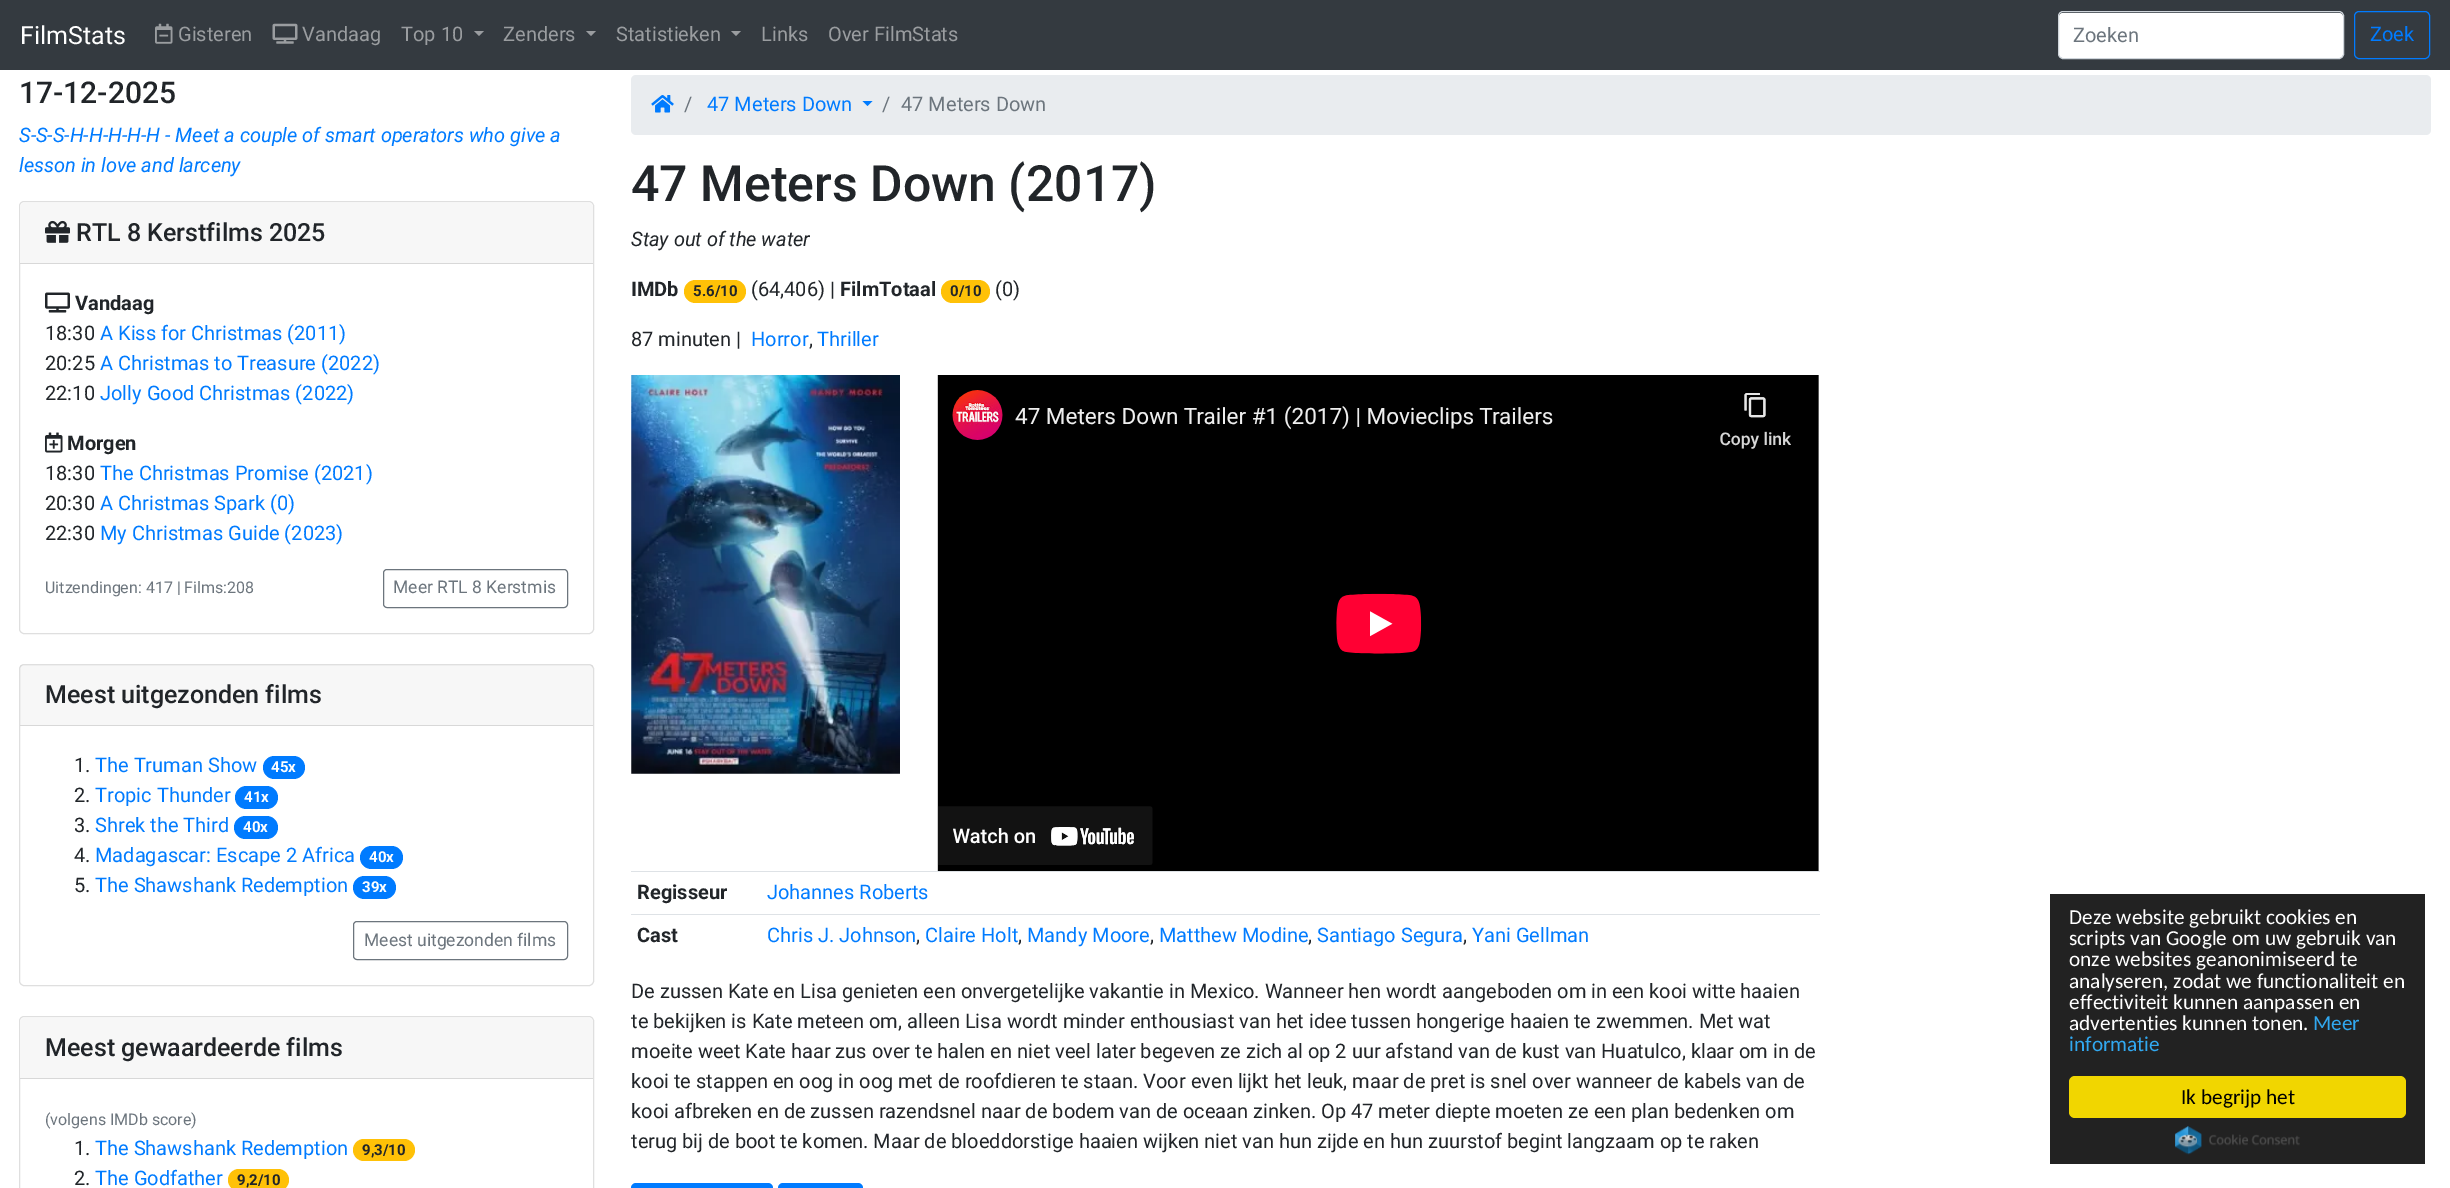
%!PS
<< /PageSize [2450 1188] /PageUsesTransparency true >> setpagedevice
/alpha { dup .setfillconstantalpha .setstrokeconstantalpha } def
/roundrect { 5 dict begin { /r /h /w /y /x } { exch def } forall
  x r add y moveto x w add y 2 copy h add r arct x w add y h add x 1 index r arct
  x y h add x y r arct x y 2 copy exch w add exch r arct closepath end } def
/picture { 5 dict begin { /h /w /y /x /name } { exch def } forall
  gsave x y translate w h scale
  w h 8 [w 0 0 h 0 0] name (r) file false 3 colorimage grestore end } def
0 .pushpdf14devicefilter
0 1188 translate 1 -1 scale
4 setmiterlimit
1 setgray
0 0 2450 1188 rectfill
0.204 0.227 0.251 setrgbcolor
0 0 2450 70 rectfill
/Roboto-Regular [25 0 0 -25 0 0] selectfont
1 setgray
20 44 moveto (FilmStats) show
(img1.rgb) 155 23 18 21 picture
/Roboto-Regular [20 0 0 -20 0 0] selectfont
0.604 0.616 0.627 setrgbcolor
178 41 moveto (Gisteren) show
(img2.rgb) 272 23 26 21 picture
302 41 moveto (Vandaag) show
401 41 moveto (Top 10) show
newpath 474 31 moveto 484 31 lineto 479 36 lineto closepath fill
503 41 moveto (Zenders) show
newpath 586 31 moveto 596 31 lineto 591 36 lineto closepath fill
616 41 moveto (Statistieken) show
newpath 731 31 moveto 741 31 lineto 736 36 lineto closepath fill
761 41 moveto (Links) show
828 41 moveto (Over FilmStats) show
1 setgray
2059 13 284 45 4 roundrect fill
0.808 0.831 0.855 setrgbcolor
2058.5 11.5 285 47 4.5 roundrect stroke
0.424 0.459 0.49 setrgbcolor
2073 42 moveto (Zoeken) show
0 0.482 1 setrgbcolor
2354.5 11.5 75 47 4.5 roundrect stroke
2370 41 moveto (Zoek) show
/Roboto-Medium [30 0 0 -30 0 0] selectfont
0.129 0.145 0.161 setrgbcolor
19 103 moveto (17-12-2025) show
/Roboto-Italic [20 0 0 -20 0 0] selectfont
0 0.482 1 setrgbcolor
19 142 moveto (S-S-S-H-H-H-H-H - Meet a couple of smart operators who give a) show
19 172 moveto (lesson in love and larceny) show
0.875 setgray
19.5 201.5 574 432 4.5 roundrect stroke
0.969 setgray
newpath 24 203 moveto 589 203 lineto 591 203 593 205 593 207 curveto 593 264 lineto 20 264 lineto 20 207 lineto 20 205 22 203 24 203 curveto closepath fill
0.847 setgray
20 263 573 1 rectfill
(img3.rgb) 45 220 25 23 picture
/Roboto-Medium [25 0 0 -25 0 0] selectfont
0.129 0.145 0.161 setrgbcolor
76 241 moveto (RTL 8 Kerstfilms 2025) show
(img4.rgb) 45 292 25 21 picture
/Roboto-Bold [20 0 0 -20 0 0] selectfont
75 310 moveto (Vandaag) show
/Roboto-Regular [20 0 0 -20 0 0] selectfont
45 340 moveto (18:30) show
0 0.482 1 setrgbcolor
100 340 moveto (A Kiss for Christmas \(2011\)) show
0.129 0.145 0.161 setrgbcolor
45 370 moveto (20:25) show
0 0.482 1 setrgbcolor
100 370 moveto (A Christmas to Treasure \(2022\)) show
0.129 0.145 0.161 setrgbcolor
45 400 moveto (22:10) show
0 0.482 1 setrgbcolor
100 400 moveto (Jolly Good Christmas \(2022\)) show
(img5.rgb) 45 432 18 21 picture
/Roboto-Bold [20 0 0 -20 0 0] selectfont
0.129 0.145 0.161 setrgbcolor
67 450 moveto (Morgen) show
/Roboto-Regular [20 0 0 -20 0 0] selectfont
45 480 moveto (18:30) show
0 0.482 1 setrgbcolor
100 480 moveto (The Christmas Promise \(2021\)) show
0.129 0.145 0.161 setrgbcolor
45 510 moveto (20:30) show
0 0.482 1 setrgbcolor
100 510 moveto (A Christmas Spark \(0\)) show
0.129 0.145 0.161 setrgbcolor
45 540 moveto (22:30) show
0 0.482 1 setrgbcolor
100 540 moveto (My Christmas Guide \(2023\)) show
/Roboto-Regular [16 0 0 -16 0 0] selectfont
0.424 0.459 0.49 setrgbcolor
45 593 moveto (Uitzendingen: 417 | Films:208) show
383.5 569.5 184 38 3.5 roundrect stroke
/Roboto-Regular [17.5 0 0 -17.5 0 0] selectfont
393 593 moveto (Meer RTL 8 Kerstmis) show
0.875 setgray
19.5 664.5 574 321 4.5 roundrect stroke
0.03 alpha
0 setgray
20 665 573 60 rectfill
1 alpha
0.847 setgray
20 725 573 1 rectfill
/Roboto-Medium [25 0 0 -25 0 0] selectfont
0.129 0.145 0.161 setrgbcolor
45 703 moveto (Meest uitgezonden films) show
/Roboto-Regular [20 0 0 -20 0 0] selectfont
74 772 moveto (1.) show
0 0.482 1 setrgbcolor
95 772 moveto (The Truman Show) show
263 756 42 23 11.5 roundrect fill
/Roboto-Bold [15 0 0 -15 0 0] selectfont
1 setgray
271 772 moveto (45x) show
/Roboto-Regular [20 0 0 -20 0 0] selectfont
0.129 0.145 0.161 setrgbcolor
74 802 moveto (2.) show
0 0.482 1 setrgbcolor
95 802 moveto (Tropic Thunder) show
235 786 43 23 11.5 roundrect fill
/Roboto-Bold [15 0 0 -15 0 0] selectfont
1 setgray
244 802 moveto (41x) show
/Roboto-Regular [20 0 0 -20 0 0] selectfont
0.129 0.145 0.161 setrgbcolor
74 832 moveto (3.) show
0 0.482 1 setrgbcolor
95 832 moveto (Shrek the Third) show
234 816 44 23 11.5 roundrect fill
/Roboto-Bold [15 0 0 -15 0 0] selectfont
1 setgray
243 832 moveto (40x) show
/Roboto-Regular [20 0 0 -20 0 0] selectfont
0.129 0.145 0.161 setrgbcolor
74 862 moveto (4.) show
0 0.482 1 setrgbcolor
95 862 moveto (Madagascar: Escape 2 Africa) show
360 846 43 23 11.5 roundrect fill
/Roboto-Bold [15 0 0 -15 0 0] selectfont
1 setgray
369 862 moveto (40x) show
/Roboto-Regular [20 0 0 -20 0 0] selectfont
0.129 0.145 0.161 setrgbcolor
74 892 moveto (5.) show
0 0.482 1 setrgbcolor
95 892 moveto (The Shawshank Redemption) show
353 876 43 23 11.5 roundrect fill
/Roboto-Bold [15 0 0 -15 0 0] selectfont
1 setgray
362 892 moveto (39x) show
0.424 0.459 0.49 setrgbcolor
353.5 921.5 214 38 3.5 roundrect stroke
/Roboto-Regular [17.5 0 0 -17.5 0 0] selectfont
364 946 moveto (Meest uitgezonden films) show
0.875 setgray
19.5 1016.5 574 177 4.5 roundrect stroke
0.969 setgray
newpath 24 1018 moveto 589 1018 lineto 591 1018 593 1020 593 1022 curveto 593 1079 lineto 20 1079 lineto 20 1022 lineto 20 1020 22 1018 24 1018 curveto closepath fill
0.847 setgray
20 1078 573 1 rectfill
/Roboto-Medium [25 0 0 -25 0 0] selectfont
0.129 0.145 0.161 setrgbcolor
45 1056 moveto (Meest gewaardeerde films) show
/Roboto-Regular [16 0 0 -16 0 0] selectfont
0.424 0.459 0.49 setrgbcolor
45 1125 moveto (\(volgens IMDb score\)) show
/Roboto-Regular [20 0 0 -20 0 0] selectfont
0.129 0.145 0.161 setrgbcolor
74 1155 moveto (1.) show
0 0.482 1 setrgbcolor
95 1155 moveto (The Shawshank Redemption) show
1 0.757 0.027 setrgbcolor
353 1139 62 22 11 roundrect fill
/Roboto-Bold [15 0 0 -15 0 0] selectfont
0.129 0.145 0.161 setrgbcolor
362 1155 moveto (9,3/10) show
/Roboto-Regular [20 0 0 -20 0 0] selectfont
74 1185 moveto (2.) show
0 0.482 1 setrgbcolor
95 1185 moveto (The Godfather) show
1 0.757 0.027 setrgbcolor
228 1169 61 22 11 roundrect fill
/Roboto-Bold [15 0 0 -15 0 0] selectfont
0.129 0.145 0.161 setrgbcolor
237 1185 moveto (9,2/10) show
0.914 0.925 0.937 setrgbcolor
631 75 1800 60 5 roundrect fill
(img6.rgb) 651 95 23 18 picture
/Roboto-Regular [20 0 0 -20 0 0] selectfont
0.424 0.459 0.49 setrgbcolor
684 111 moveto (/) show
0 0.482 1 setrgbcolor
707 111 moveto (47 Meters Down) show
newpath 862.5 101 moveto 872.5 101 lineto 867.5 106 lineto closepath fill
0.424 0.459 0.49 setrgbcolor
882 111 moveto (/) show
901 111 moveto (47 Meters Down) show
/Roboto-Medium [50 0 0 -50 0 0] selectfont
0.129 0.145 0.161 setrgbcolor
631 201 moveto (47 Meters Down \(2017\)) show
/Roboto-Italic [20 0 0 -20 0 0] selectfont
631 246 moveto (Stay out of the water) show
/Roboto-Bold [20 0 0 -20 0 0] selectfont
631 296 moveto (IMDb) show
1 0.757 0.027 setrgbcolor
684 280 62 23 11.5 roundrect fill
/Roboto-Bold [15 0 0 -15 0 0] selectfont
0.129 0.145 0.161 setrgbcolor
693 296 moveto (5.6/10) show
/Roboto-Regular [20 0 0 -20 0 0] selectfont
751 296 moveto (\(64,406\) |) show
/Roboto-Bold [20 0 0 -20 0 0] selectfont
840 296 moveto (FilmTotaal) show
1 0.757 0.027 setrgbcolor
941 280 49 23 11.5 roundrect fill
/Roboto-Bold [15 0 0 -15 0 0] selectfont
0.129 0.145 0.161 setrgbcolor
950 296 moveto (0/10) show
/Roboto-Regular [20 0 0 -20 0 0] selectfont
995 296 moveto (\(0\)) show
631 346 moveto (87 minuten |) show
0 0.482 1 setrgbcolor
751 346 moveto (Horror) show
0.129 0.145 0.161 setrgbcolor
809 346 moveto (,) show
0 0.482 1 setrgbcolor
817 346 moveto (Thriller) show
(img7.rgb) 631 375 269 399 picture
(img8.rgb) 937 375 882 496 picture
/Roboto-Bold [20 0 0 -20 0 0] selectfont
0.129 0.145 0.161 setrgbcolor
637 899 moveto (Regisseur) show
0.871 0.886 0.902 setrgbcolor
631 871 1189 1 rectfill
/Roboto-Regular [20 0 0 -20 0 0] selectfont
0 0.482 1 setrgbcolor
767 899 moveto (Johannes Roberts) show
/Roboto-Bold [20 0 0 -20 0 0] selectfont
0.129 0.145 0.161 setrgbcolor
637 942 moveto (Cast) show
0.871 0.886 0.902 setrgbcolor
631 914 1189 1 rectfill
/Roboto-Regular [20 0 0 -20 0 0] selectfont
0 0.482 1 setrgbcolor
767 942 moveto (Chris J. Johnson) show
0.129 0.145 0.161 setrgbcolor
916 942 moveto (,) show
0 0.482 1 setrgbcolor
925 942 moveto (Claire Holt) show
0.129 0.145 0.161 setrgbcolor
1018 942 moveto (,) show
0 0.482 1 setrgbcolor
1027 942 moveto (Mandy Moore) show
0.129 0.145 0.161 setrgbcolor
1150 942 moveto (,) show
0 0.482 1 setrgbcolor
1159 942 moveto (Matthew Modine) show
0.129 0.145 0.161 setrgbcolor
1308 942 moveto (,) show
0 0.482 1 setrgbcolor
1317 942 moveto (Santiago Segura) show
0.129 0.145 0.161 setrgbcolor
1463 942 moveto (,) show
0 0.482 1 setrgbcolor
1472 942 moveto (Yani Gellman) show
0.129 0.145 0.161 setrgbcolor
631 998 moveto (De zussen Kate en Lisa genieten een onvergetelijke vakantie in Mexico. Wanneer hen wordt aangeboden om in een kooi witte haaien) show
631 1028 moveto (te bekijken is Kate meteen om, alleen Lisa wordt minder enthousiast van het idee tussen hongerige haaien te zwemmen. Met wat) show
631 1058 moveto (moeite weet Kate haar zus over te halen en niet veel later begeven ze zich al op 2 uur afstand van de kust van Huatulco, klaar om in de) show
631 1088 moveto (kooi te stappen en oog in oog met de roofdieren te staan. Voor even lijkt het leuk, maar de pret is snel over wanneer de kabels van de) show
631 1118 moveto (kooi afbreken en de zussen razendsnel naar de bodem van de oceaan zinken. Op 47 meter diepte moeten ze een plan bedenken om) show
631 1148 moveto (terug bij de boot te komen. Maar de bloeddorstige haaien wijken niet van hun zijde en hun zuurstof begint langzaam op te raken) show
0 0.482 1 setrgbcolor
631 1183 142 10 5 roundrect fill
778 1183 85 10 5 roundrect fill
0.133 setgray
2050 894 375 270 rectfill
/Carlito-Regular [21.25 0 0 -21.25 0 0] selectfont
1 setgray
2069 924 moveto (Deze website gebruikt cookies en) show
2069 945 moveto (scripts van Google om uw gebruik van) show
2069 966 moveto (onze websites geanonimiseerd te) show
2069 988 moveto (analyseren, zodat we functionaliteit en) show
2069 1009 moveto (effectiviteit kunnen aanpassen en) show
2069 1030 moveto (advertenties kunnen tonen.) show
0.192 0.659 0.941 setrgbcolor
2313 1030 moveto (Meer) show
2069 1051 moveto (informatie) show
0.945 0.839 0 setrgbcolor
2069 1076 337 42 6 roundrect fill
0 setgray
2181 1104 moveto (Ik begrijp het) show
(img9.rgb) 2175 1126 125 29 picture
.poppdf14devicefilter showpage
